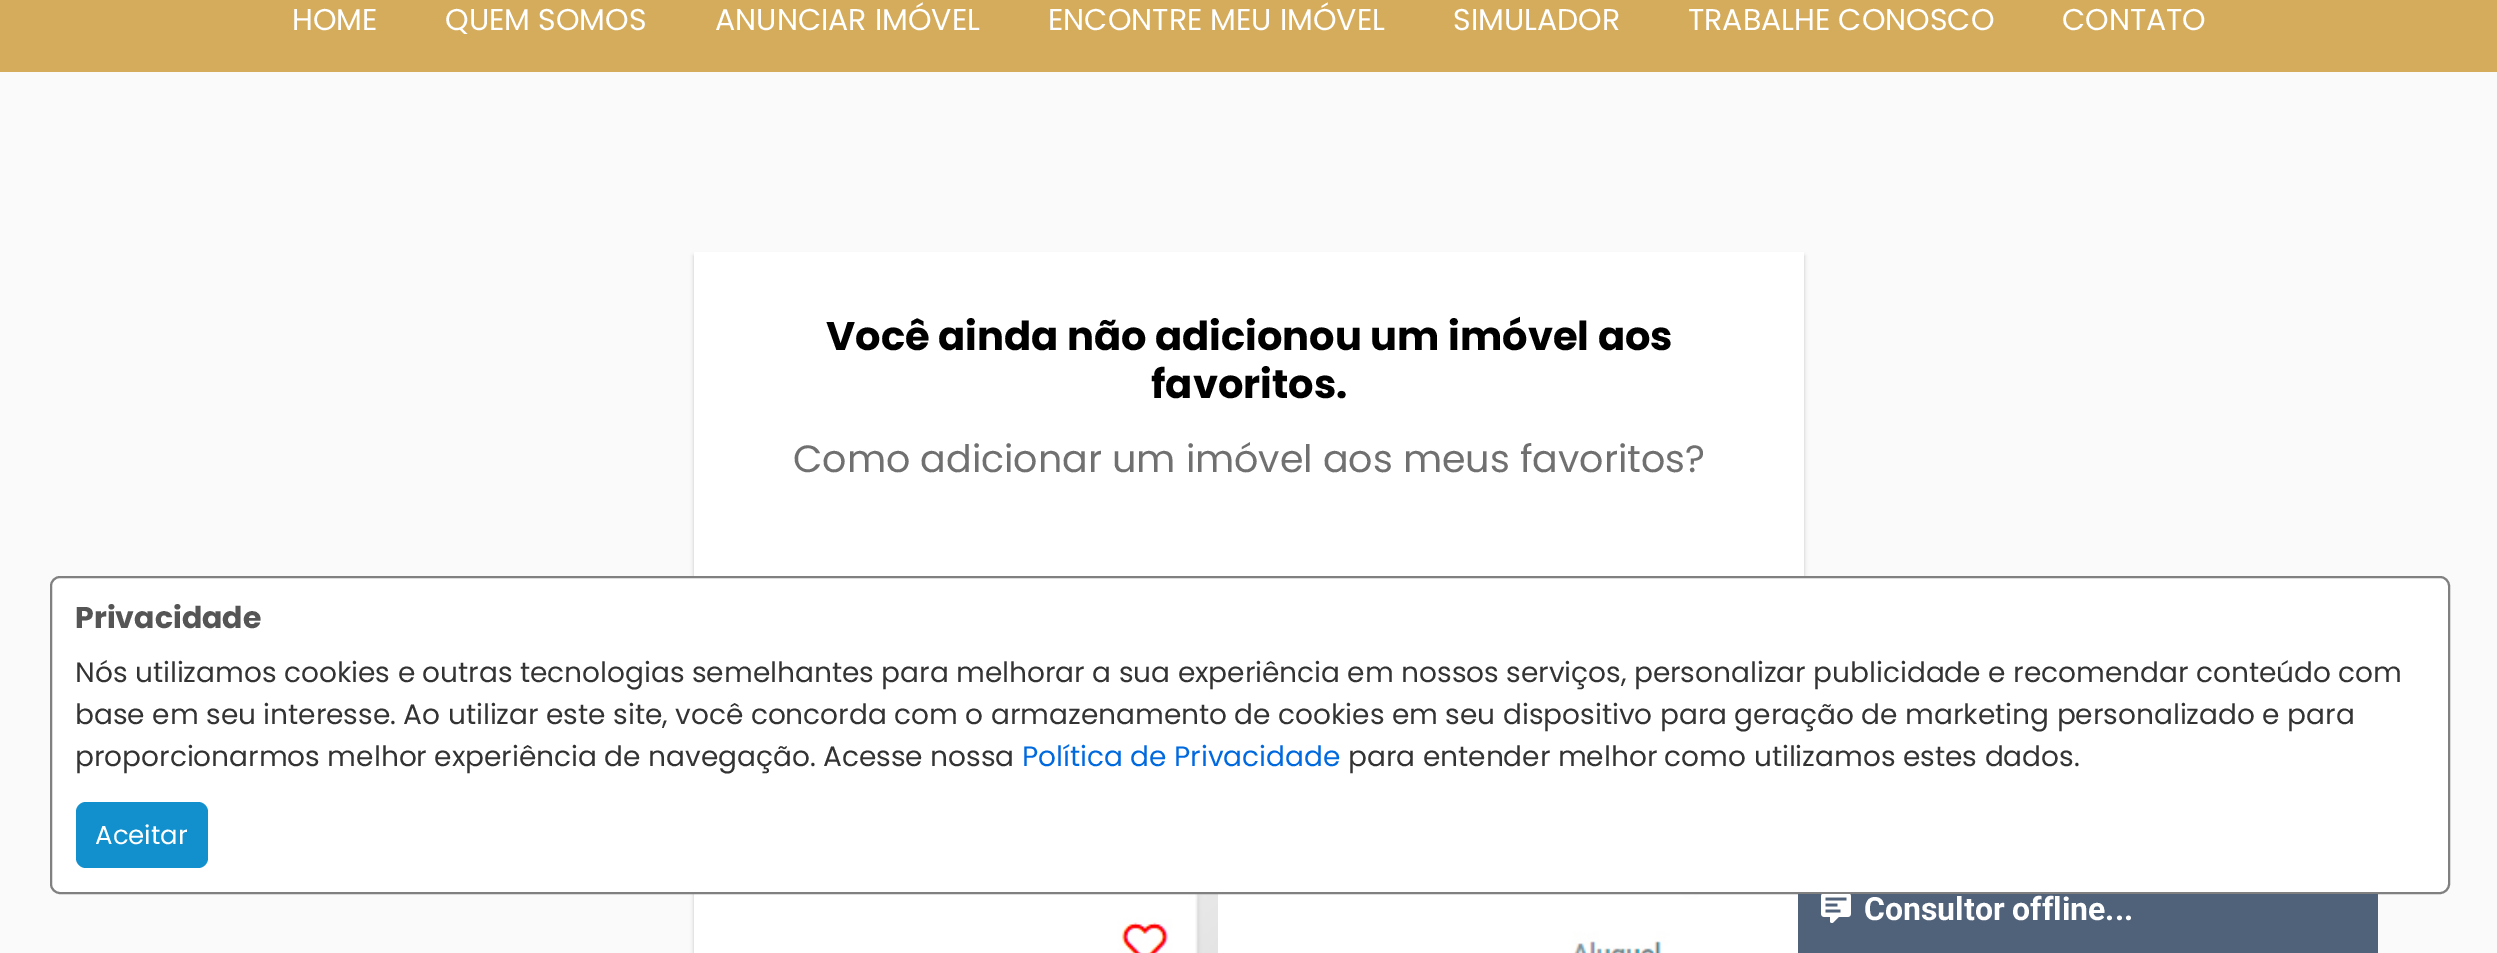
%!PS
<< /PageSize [2497 953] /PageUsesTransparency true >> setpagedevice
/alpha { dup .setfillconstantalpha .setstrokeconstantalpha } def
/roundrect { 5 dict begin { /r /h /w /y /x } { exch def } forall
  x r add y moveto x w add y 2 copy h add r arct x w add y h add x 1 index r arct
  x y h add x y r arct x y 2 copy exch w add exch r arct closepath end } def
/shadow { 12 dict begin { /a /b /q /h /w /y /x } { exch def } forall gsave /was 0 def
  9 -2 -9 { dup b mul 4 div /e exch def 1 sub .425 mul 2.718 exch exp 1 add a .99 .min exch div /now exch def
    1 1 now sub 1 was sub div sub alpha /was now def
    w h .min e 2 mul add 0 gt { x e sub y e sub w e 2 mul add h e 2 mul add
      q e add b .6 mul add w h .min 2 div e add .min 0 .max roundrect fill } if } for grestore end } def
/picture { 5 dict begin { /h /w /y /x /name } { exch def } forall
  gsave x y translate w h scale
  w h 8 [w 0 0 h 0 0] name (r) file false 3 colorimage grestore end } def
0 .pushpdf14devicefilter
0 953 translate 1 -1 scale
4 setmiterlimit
0.98 setgray
0 0 2497 953 rectfill
0.831 0.675 0.361 setrgbcolor
0 0 2497 72 rectfill
/Poppins-Regular [30 0 0 -30 0 0] selectfont
1 setgray
292 30 moveto (HOME) show
445 30 moveto (QUEM SOMOS) show
715 30 moveto (ANUNCIAR IMÓVEL) show
1048 30 moveto (ENCONTRE MEU IMÓVEL) show
1453 30 moveto (SIMULADOR) show
1688 30 moveto (TRABALHE CONOSCO) show
2062 30 moveto (CONTATO) show
0 setgray
694 256 1110 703 0 2 0.2 shadow
1 setgray
694 252 1110 701 rectfill
/Poppins-Bold [40 0 0 -40 0 0] selectfont
0 setgray
826 350 moveto (Você ainda não adicionou um imóvel aos) show
1151 398 moveto (favoritos.) show
/Poppins-Regular [38 0 0 -38 0 0] selectfont
0.439 setgray
793 472 moveto (Como adicionar um imóvel aos meus favoritos?) show
(img1.rgb) 844 894 374 59 picture
(img2.rgb) 1338 894 376 59 picture
1 setgray
51 577 2398 316 9 roundrect gsave fill grestore
0.502 setgray
2 setlinewidth
stroke
/Poppins-Bold [30 0 0 -30 0 0] selectfont
0.333 setgray
75 628 moveto (Privacidade) show
/Poppins-Regular [28 0 0 -28 0 0] selectfont
0.2 setgray
75 682 moveto (Nós utilizamos cookies e outras tecnologias semelhantes para melhorar a sua experiência em nossos serviços, personalizar publicidade e recomendar conteúdo com) show
75 724 moveto (base em seu interesse. Ao utilizar este site, você concorda com o armazenamento de cookies em seu dispositivo para geração de marketing personalizado e para) show
75 766 moveto (proporcionarmos melhor experiência de navegação. Acesse nossa) show
0 0.412 0.871 setrgbcolor
1022 766 moveto (Política de Privacidade) show
0.2 setgray
1348 766 moveto (para entender melhor como utilizamos estes dados.) show
0.067 0.565 0.804 setrgbcolor
76 802 132 66 10 roundrect fill
/Poppins-Regular [26 0 0 -26 0 0] selectfont
1 setgray
95 844 moveto (Aceitar) show
0.314 0.38 0.478 setrgbcolor
1798 894 580 59 rectfill
(img3.rgb) 1821 894 30 29 picture
/Roboto-Bold [32 0 0 -32 0 0] selectfont
1 setgray
1864 920 moveto (Consultor offline...) show
.poppdf14devicefilter showpage
